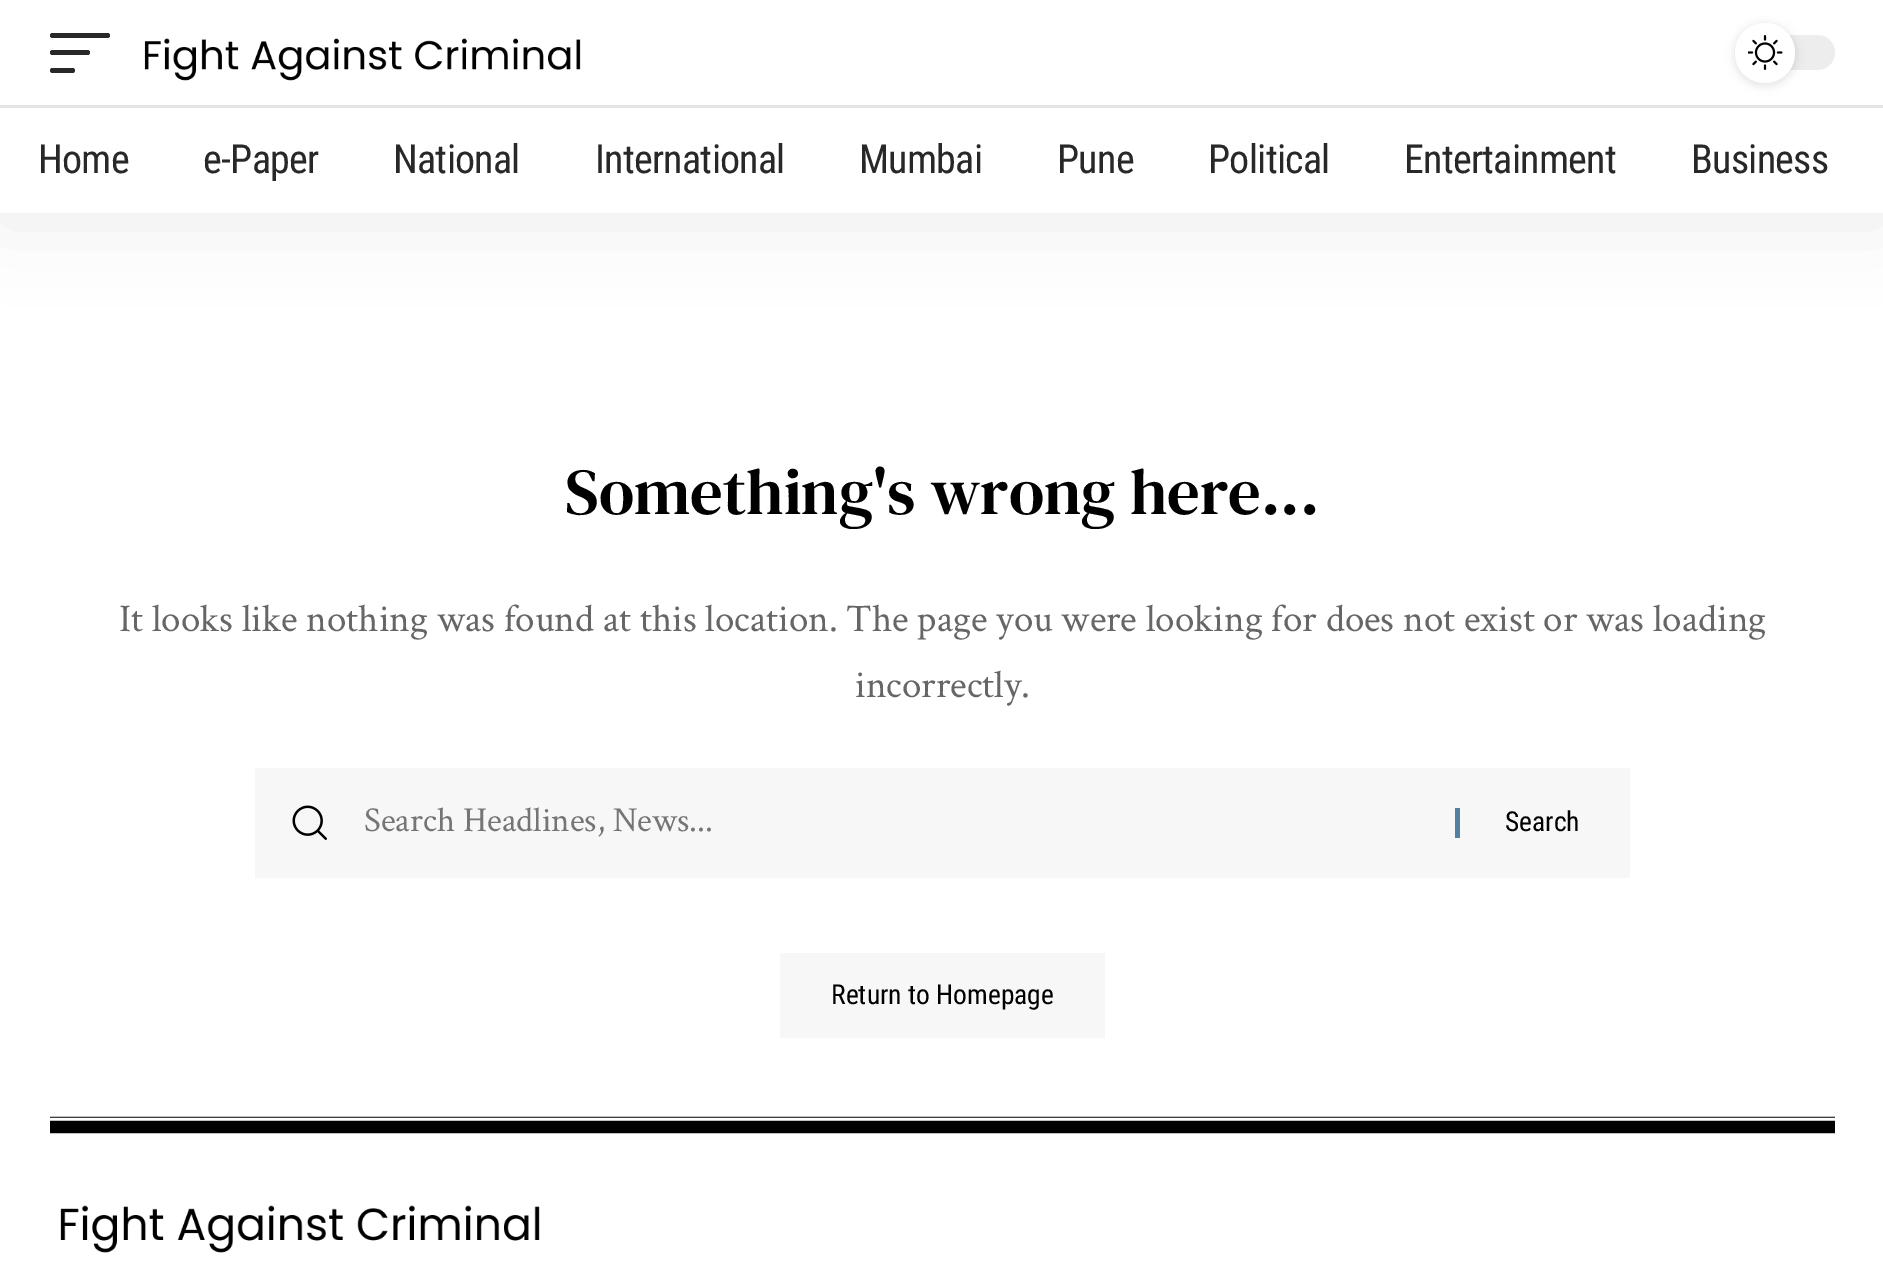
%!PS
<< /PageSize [1883 1261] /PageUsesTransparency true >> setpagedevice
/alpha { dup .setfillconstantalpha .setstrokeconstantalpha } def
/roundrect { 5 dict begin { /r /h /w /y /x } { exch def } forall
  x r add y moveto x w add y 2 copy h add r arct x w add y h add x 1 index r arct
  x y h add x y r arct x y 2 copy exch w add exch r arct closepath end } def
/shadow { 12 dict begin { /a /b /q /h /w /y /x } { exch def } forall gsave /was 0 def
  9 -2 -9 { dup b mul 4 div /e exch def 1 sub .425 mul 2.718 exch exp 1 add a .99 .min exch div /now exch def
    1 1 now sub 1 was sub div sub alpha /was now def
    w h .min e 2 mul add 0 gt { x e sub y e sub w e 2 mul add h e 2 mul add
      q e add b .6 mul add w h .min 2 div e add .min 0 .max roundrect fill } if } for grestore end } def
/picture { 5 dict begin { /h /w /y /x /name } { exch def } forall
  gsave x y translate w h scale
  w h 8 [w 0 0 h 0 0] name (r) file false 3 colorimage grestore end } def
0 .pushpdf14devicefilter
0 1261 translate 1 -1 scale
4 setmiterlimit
1 setgray
0 0 1883 1261 rectfill
0 setgray
0 10 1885 213 0 37.5 0.07 shadow
1 setgray
0 0 1883 213 rectfill
0.157 setgray
50 33 60 5 2.5 roundrect fill
50 50 40 5 2.5 roundrect fill
50 68 25 5 2.5 roundrect fill
(img1.rgb) 144 38 437 43 picture
0.929 setgray
1735 35 100 35 17.5 roundrect fill
0 setgray
1735 25 60 60 30 5 0.12 shadow
1 setgray
newpath 1765 53 30 0 360 arc closepath fill
(img2.rgb) 1748 35 35 35 picture
0.894 setgray
0 105 1883 3 rectfill
/RobotoCondensed-Regular [40 0 0 -40 0 0] selectfont
0.157 setgray
38 173 moveto -0.75 0 (Home) ashow
203 173 moveto -0.75 0 (e-Paper) ashow
393 173 moveto -0.75 0 (National) ashow
595 173 moveto -0.75 0 (International) ashow
859 173 moveto -0.75 0 (Mumbai) ashow
1057 173 moveto -0.75 0 (Pune) ashow
1208 173 moveto -0.75 0 (Political) ashow
1404 173 moveto -0.75 0 (Entertainment) ashow
1691 173 moveto -0.75 0 (Business) ashow
/DMSerifText-Regular [65 0 0 -65 0 0] selectfont
0 setgray
565 514 moveto (Something's wrong here...) show
/CrimsonText-Regular [39.1 0 0 -39.1 0 0] selectfont
0.4 setgray
119 631 moveto (It looks like nothing was found at this location. The page you were looking for does not exist or was loading) show
855 697 moveto (incorrectly.) show
0.969 setgray
255 768 1375 110 rectfill
(img3.rgb) 292 805 35 35 picture
/CrimsonText-Regular [35 0 0 -35 0 0] selectfont
0.459 setgray
364 831 moveto (Search Headlines, News...) show
0.322 0.502 0.627 setrgbcolor
1455 808 5 30 rectfill
/RobotoCondensed-Regular [27.5 0 0 -27.5 0 0] selectfont
0 setgray
1505 831 moveto (Search) show
0.969 setgray
780 953 325 85 rectfill
0 setgray
831 1004 moveto (Return to Homepage) show
(img4.rgb) 50 1116 1785 18 picture
(img5.rgb) 60 1205 480 48 picture
.poppdf14devicefilter showpage
